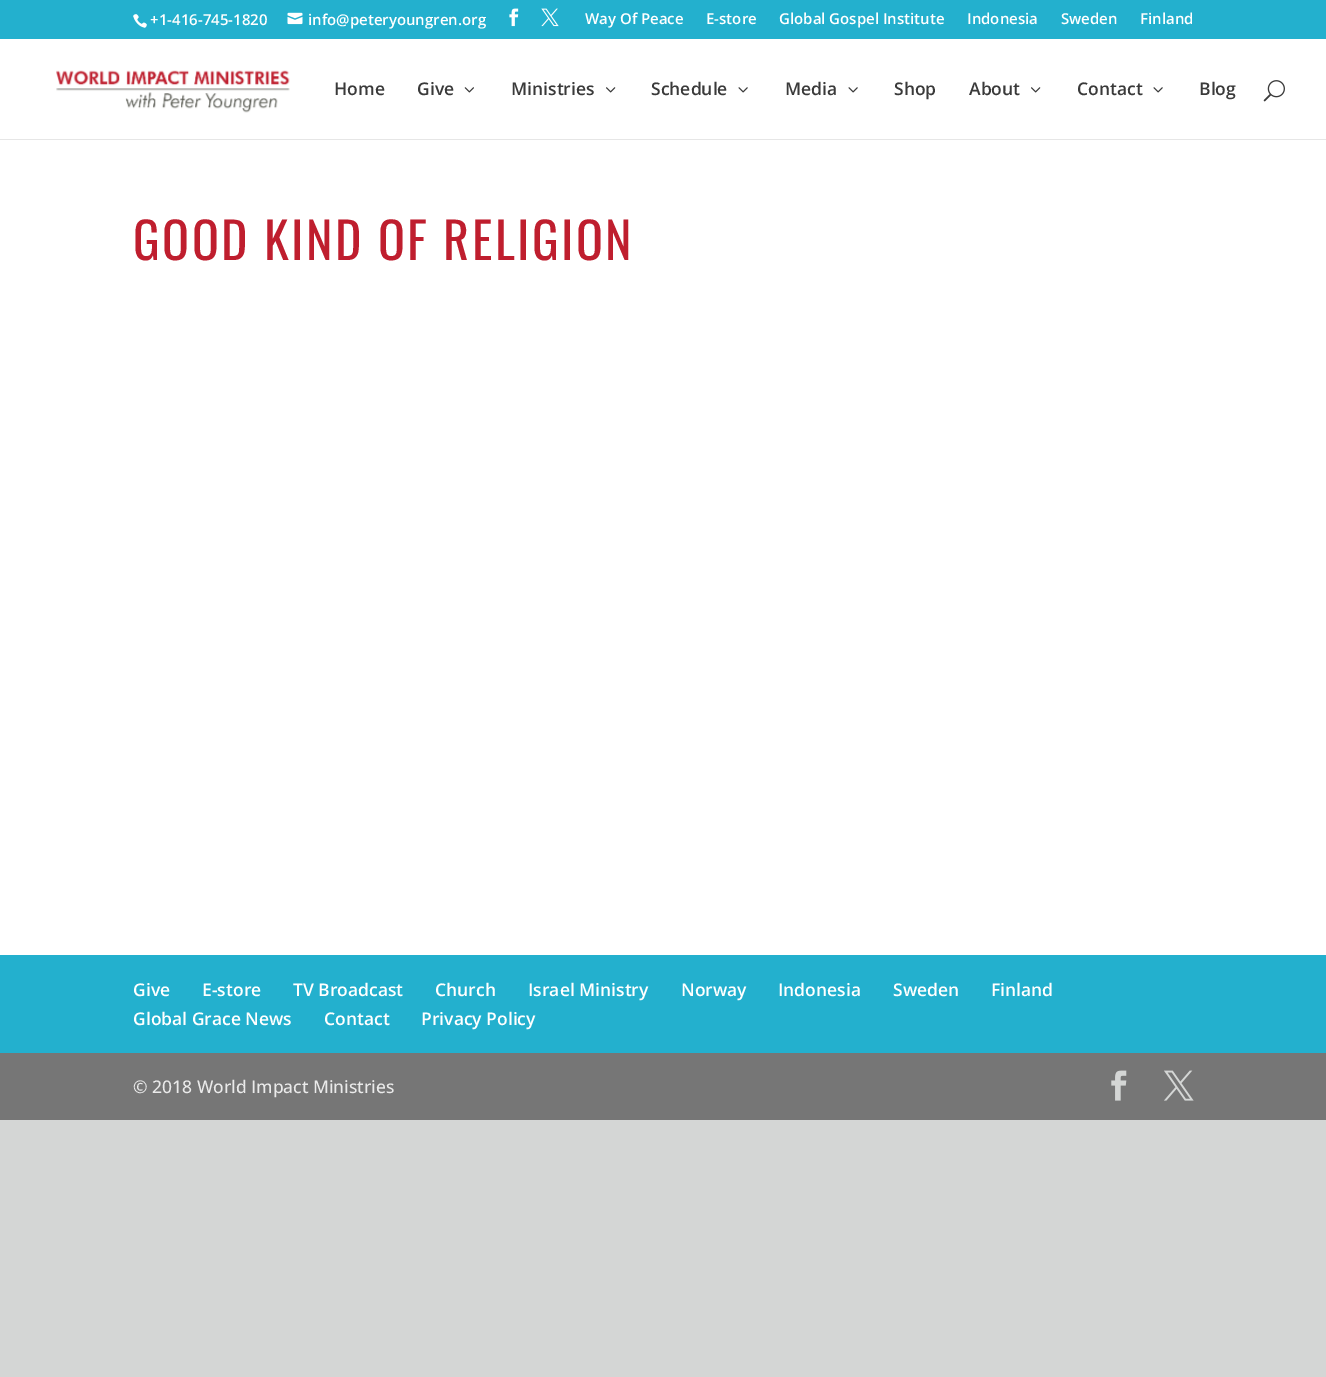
%!PS
<< /PageSize [1326 1377] >> setpagedevice
/picture { 5 dict begin { /h /w /y /x /name } { exch def } forall
  gsave x y translate w h scale
  w h 8 [w 0 0 h 0 0] name (r) file false 3 colorimage grestore end } def
0 1377 translate 1 -1 scale
4 setmiterlimit
0.831 0.839 0.835 setrgbcolor
0 0 1326 1377 rectfill
0.137 0.69 0.808 setrgbcolor
0 0 1326 39 rectfill
(img1.rgb) 133 14 14 14 picture
/OpenSans-SemiBold [15 0 0 -15 0 0] selectfont
1 setgray
150 25 moveto (+1-416-745-1820) show
(img2.rgb) 287 12 16 13 picture
308 25 moveto (info@peteryoungren.org) show
(img3.rgb) 509 8 10 19 picture
(img4.rgb) 541 8 18 19 picture
585 24 moveto (Way Of Peace) show
706 24 moveto (E-store) show
779 24 moveto (Global Gospel Institute) show
967 24 moveto (Indonesia) show
1061 24 moveto (Sweden) show
1140 24 moveto (Finland) show
0.902 setgray
0 139 1326 1 rectfill
1 setgray
0 39 1326 100 rectfill
(img5.rgb) 56 70 234 43 picture
/OpenSans-SemiBold [17.5 0 0 -17.5 0 0] selectfont
0.227 setgray
334 95 moveto (Home) show
417 95 moveto (Give) show
(img6.rgb) 464 87 10 6 picture
511 95 moveto (Ministries) show
(img7.rgb) 606 87 10 6 picture
651 95 moveto (Schedule) show
(img8.rgb) 738 87 10 6 picture
785 95 moveto (Media) show
(img8.rgb) 848 87 10 6 picture
894 95 moveto (Shop) show
969 95 moveto (About) show
(img7.rgb) 1031 87 10 6 picture
1077 95 moveto (Contact) show
(img8.rgb) 1153 87 10 6 picture
1199 95 moveto (Blog) show
(img9.rgb) 1263 80 22 22 picture
1 setgray
0 140 1326 815 rectfill
/Oswald-Regular [50 0 0 -50 0 0] selectfont
0.749 0.118 0.18 setrgbcolor
133 260 moveto 2.5 0 (GOOD KIND OF RELIGION) ashow
0.137 0.69 0.808 setrgbcolor
0 955 1326 98 rectfill
/OpenSans-SemiBold [17.5 0 0 -17.5 0 0] selectfont
1 setgray
133 996 moveto (Give) show
202 996 moveto (E-store) show
293 996 moveto (TV Broadcast) show
435 996 moveto (Church) show
528 996 moveto (Israel Ministry) show
681 996 moveto (Norway) show
778 996 moveto (Indonesia) show
893 996 moveto (Sweden) show
991 996 moveto (Finland) show
133 1025 moveto (Global Grace News) show
324 1025 moveto (Contact) show
421 1025 moveto (Privacy Policy) show
0.463 setgray
0 1053 1326 67 rectfill
/OpenSans-Medium [17.5 0 0 -17.5 0 0] selectfont
0.918 setgray
133 1093 moveto (© 2018 World Impact Ministries) show
(img10.rgb) 1111 1070 16 31 picture
(img11.rgb) 1164 1070 30 31 picture
showpage
